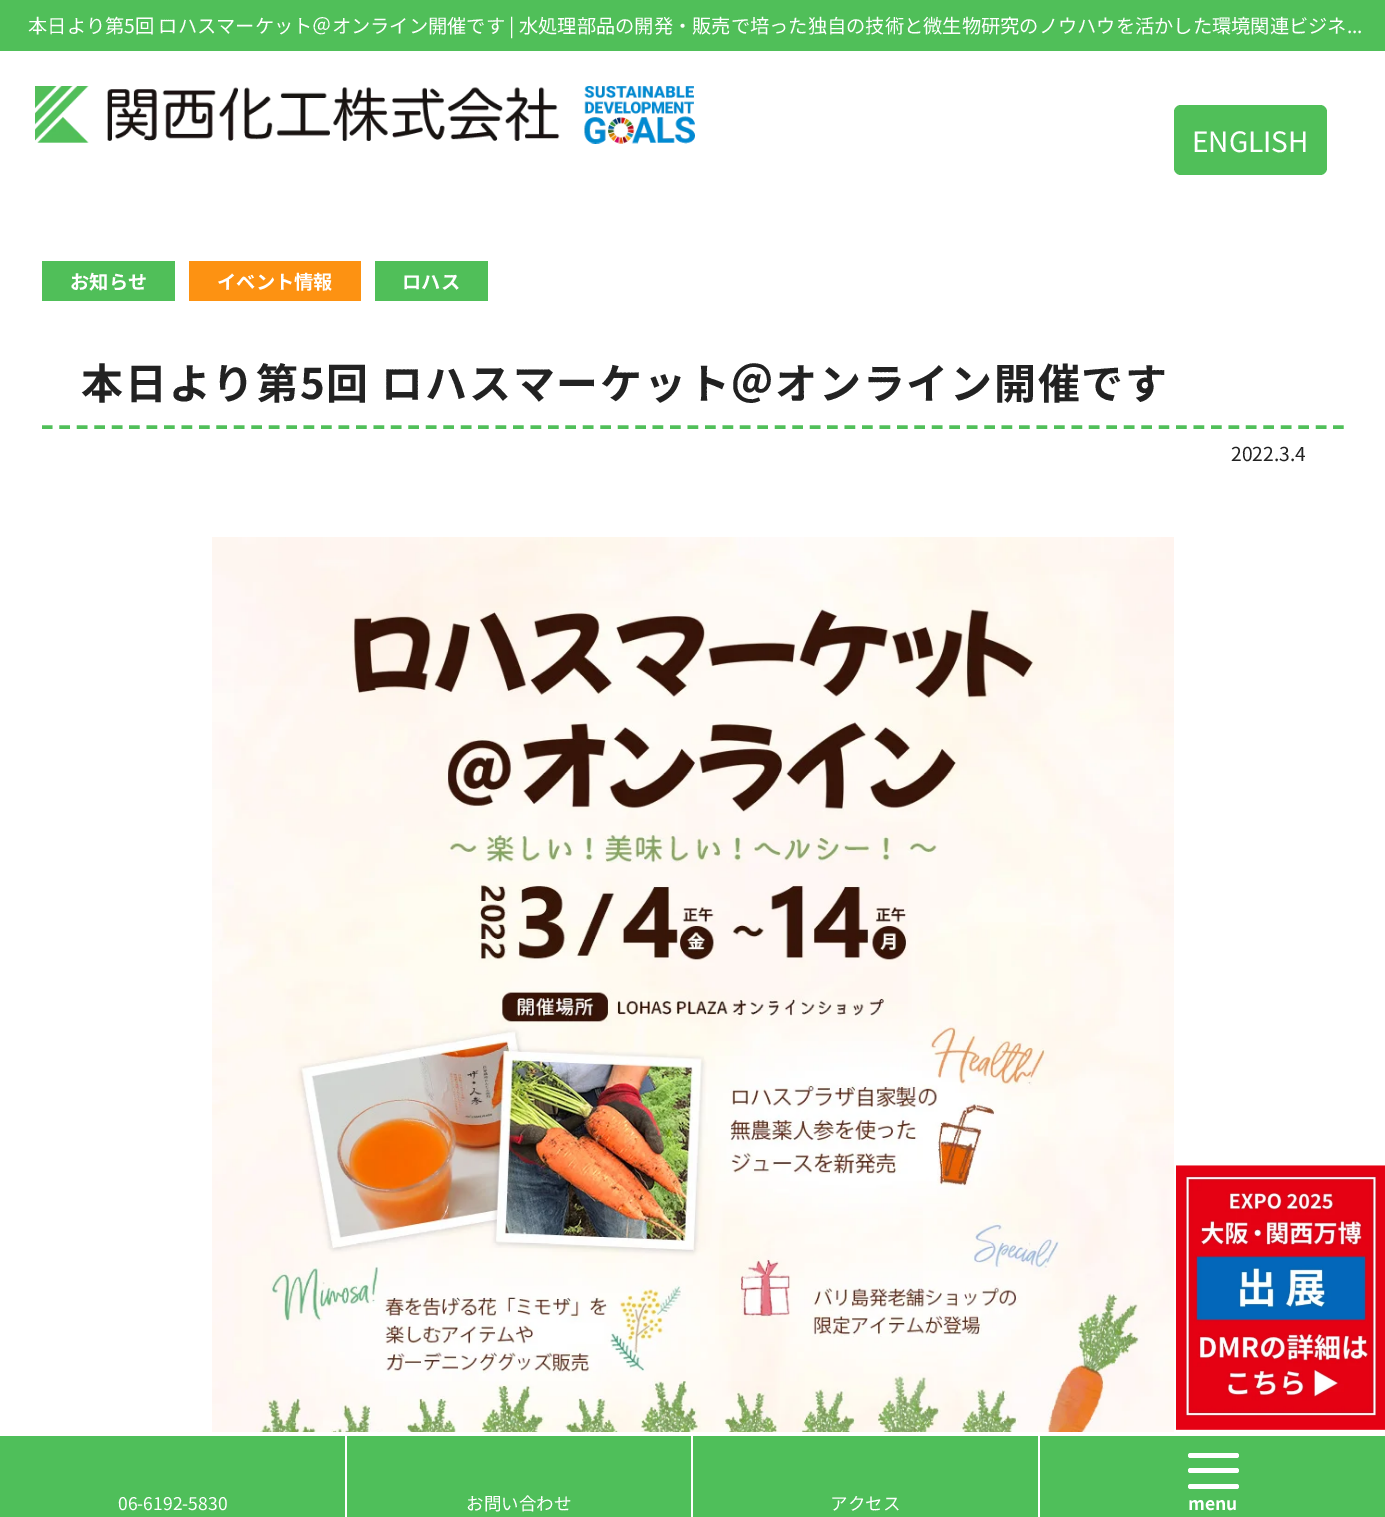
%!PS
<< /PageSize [1385 1517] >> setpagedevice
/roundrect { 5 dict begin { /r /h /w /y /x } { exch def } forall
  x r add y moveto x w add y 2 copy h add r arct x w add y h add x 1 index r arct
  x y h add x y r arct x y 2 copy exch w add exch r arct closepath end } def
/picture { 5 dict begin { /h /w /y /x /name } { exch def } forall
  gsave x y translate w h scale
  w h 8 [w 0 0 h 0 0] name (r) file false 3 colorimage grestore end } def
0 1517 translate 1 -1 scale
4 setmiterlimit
1 setgray
0 0 1385 1517 rectfill
0.314 0.749 0.349 setrgbcolor
0 0 1385 51 rectfill
/NotoSansJP-Regular [19.25 0 0 -19.25 0 0] selectfont
1 setgray
28 33 moveto (本日より第5回 ロハスマーケット＠オンライン開催です | 水処理部品の開発・販売で培った独自の技術と微生物研究のノウハウを活かした環境関連ビジネ...) show
(img1.rgb) 35 86 660 58 picture
0.314 0.749 0.349 setrgbcolor
1174 105 153 70 7 roundrect fill
/NotoSansJP-Regular [28 0 0 -28 0 0] selectfont
1 setgray
1192 152 moveto (ENGLISH) show
0.314 0.749 0.349 setrgbcolor
42 261 133 40 rectfill
/NotoSansJP-Bold [19.25 0 0 -19.25 0 0] selectfont
1 setgray
70 289 moveto (お知らせ) show
0.992 0.573 0.071 setrgbcolor
189 261 172 40 rectfill
1 setgray
217 289 moveto (イベント情報) show
0.314 0.749 0.349 setrgbcolor
375 261 113 40 rectfill
1 setgray
402 289 moveto (ロハス) show
0.314 0.749 0.349 setrgbcolor
3.5 setlinewidth
[10.5 6.95] 0 setdash
newpath 42 427 moveto 1344 427 lineto stroke
/NotoSansJP-Bold [42 0 0 -42 0 0] selectfont
0.133 setgray
81 399 moveto 1.75 0 (本日より第5回 ロハスマーケット＠オンライン開催です) ashow
/NotoSansJP-Regular [19.25 0 0 -19.25 0 0] selectfont
1231 461 moveto (2022.3.4) show
(img2.rgb) 212 537 962 895 picture
(img3.rgb) 1176 1165 209 265 picture
0.31 0.749 0.353 setrgbcolor
0 1436 1385 81 rectfill
1 setgray
345 1435 2 82 rectfill
/NotoSansJP-Regular [17.5 0 0 -17.5 0 0] selectfont
118 1510 moveto (06-6192-5830) show
691 1435 2 82 rectfill
466 1510 moveto (お問い合わせ) show
1038 1435 2 82 rectfill
830 1510 moveto (アクセス) show
1188 1453 51 5 2.5 roundrect fill
1188 1468 51 5 2.5 roundrect fill
1188 1484 51 5 2.5 roundrect fill
/NotoSansJP-Bold [17.5 0 0 -17.5 0 0] selectfont
1188 1510 moveto (menu) show
showpage
